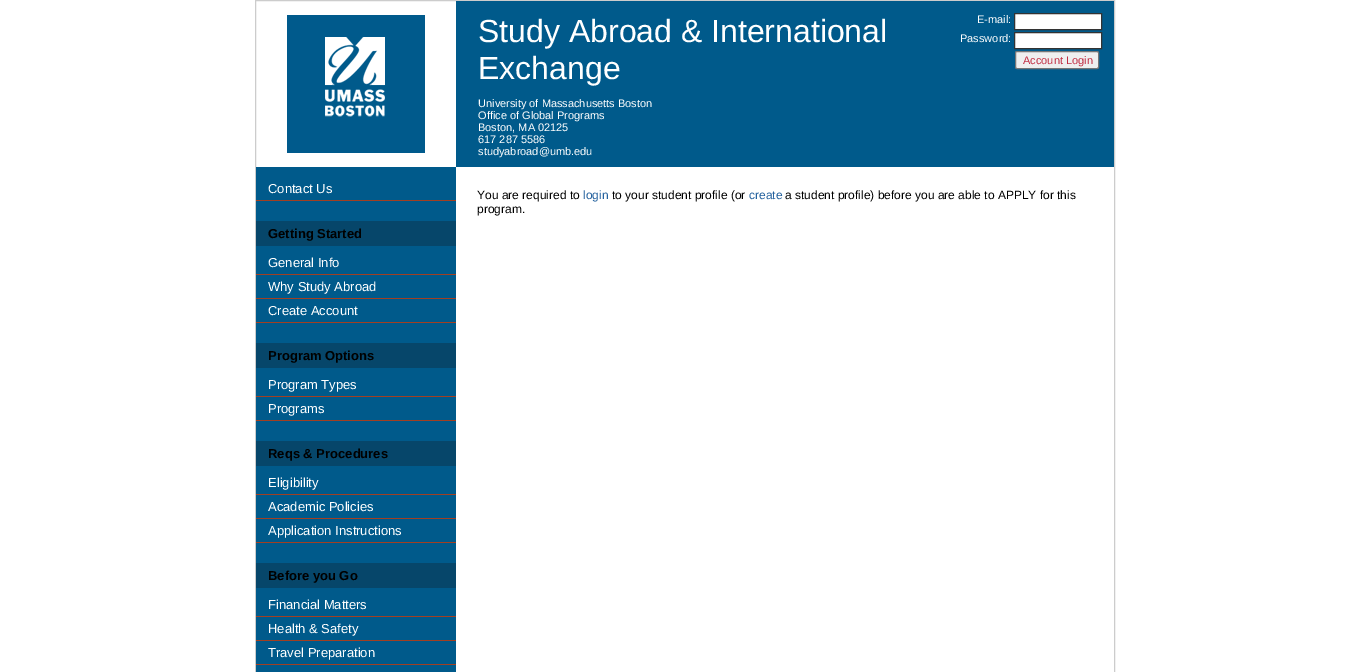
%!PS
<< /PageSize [1370 672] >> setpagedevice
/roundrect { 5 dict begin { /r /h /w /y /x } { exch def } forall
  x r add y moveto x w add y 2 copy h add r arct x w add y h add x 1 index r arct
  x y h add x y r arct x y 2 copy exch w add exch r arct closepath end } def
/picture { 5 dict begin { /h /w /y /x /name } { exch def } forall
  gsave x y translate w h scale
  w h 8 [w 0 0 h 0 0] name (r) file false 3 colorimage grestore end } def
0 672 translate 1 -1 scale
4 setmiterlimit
1 setgray
0 0 1370 672 rectfill
0.8 setgray
255.5 0.5 859 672 rectstroke
(img1.rgb) 287 15 138 138 picture
0 0.353 0.545 setrgbcolor
456 1 658 166 rectfill
/LiberationSans-Regular [32 0 0 -32 0 0] selectfont
1 setgray
478 42 moveto (Study Abroad & International) show
478 79 moveto (Exchange) show
/LiberationSans-Regular [11 0 0 -11 0 0] selectfont
478 107 moveto (University of Massachusetts Boston) show
478 119 moveto (Office of Global Programs) show
478 131 moveto (Boston, MA 02125) show
478 143 moveto (617 287 5586) show
478 155 moveto (studyabroad@umb.edu) show
977 23 moveto (E-mail:) show
newpath 1014.5 13.5 moveto 1101.5 13.5 lineto 1101.5 29.5 lineto 1014.5 29.5 lineto closepath gsave fill grestore
0.2 setgray
stroke
1 setgray
960 42 moveto (Password:) show
newpath 1014.5 32.5 moveto 1101.5 32.5 lineto 1101.5 48.5 lineto 1014.5 48.5 lineto closepath gsave fill grestore
0.2 setgray
stroke
0.937 setgray
1015.5 51.5 83 17 1.5 roundrect gsave fill grestore
0.463 setgray
stroke
0.761 0.176 0.263 setrgbcolor
1023 64 moveto (Account Login) show
0 0.353 0.545 setrgbcolor
256 167 200 505 rectfill
0.639 0.247 0.129 setrgbcolor
256 200 200 1 rectfill
/LiberationSans-Regular [13 0 0 -13 0 0] selectfont
1 setgray
268 193 moveto (Contact Us) show
0.024 0.275 0.416 setrgbcolor
256 221 200 25 rectfill
/LiberationSans-Bold [13 0 0 -13 0 0] selectfont
0 setgray
268 238 moveto (Getting Started) show
0.639 0.247 0.129 setrgbcolor
256 274 200 1 rectfill
/LiberationSans-Regular [13 0 0 -13 0 0] selectfont
1 setgray
268 267 moveto (General Info) show
0.639 0.247 0.129 setrgbcolor
256 298 200 1 rectfill
1 setgray
268 291 moveto (Why Study Abroad) show
0.639 0.247 0.129 setrgbcolor
256 322 200 1 rectfill
1 setgray
268 315 moveto (Create Account) show
0.024 0.275 0.416 setrgbcolor
256 343 200 25 rectfill
/LiberationSans-Bold [13 0 0 -13 0 0] selectfont
0 setgray
268 360 moveto (Program Options) show
0.639 0.247 0.129 setrgbcolor
256 396 200 1 rectfill
/LiberationSans-Regular [13 0 0 -13 0 0] selectfont
1 setgray
268 389 moveto (Program Types) show
0.639 0.247 0.129 setrgbcolor
256 420 200 1 rectfill
1 setgray
268 413 moveto (Programs) show
0.024 0.275 0.416 setrgbcolor
256 441 200 25 rectfill
/LiberationSans-Bold [13 0 0 -13 0 0] selectfont
0 setgray
268 458 moveto (Reqs & Procedures) show
0.639 0.247 0.129 setrgbcolor
256 494 200 1 rectfill
/LiberationSans-Regular [13 0 0 -13 0 0] selectfont
1 setgray
268 487 moveto (Eligibility) show
0.639 0.247 0.129 setrgbcolor
256 518 200 1 rectfill
1 setgray
268 511 moveto (Academic Policies) show
0.639 0.247 0.129 setrgbcolor
256 542 200 1 rectfill
1 setgray
268 535 moveto (Application Instructions) show
0.024 0.275 0.416 setrgbcolor
256 563 200 25 rectfill
/LiberationSans-Bold [13 0 0 -13 0 0] selectfont
0 setgray
268 580 moveto (Before you Go) show
0.639 0.247 0.129 setrgbcolor
256 616 200 1 rectfill
/LiberationSans-Regular [13 0 0 -13 0 0] selectfont
1 setgray
268 609 moveto (Financial Matters) show
0.639 0.247 0.129 setrgbcolor
256 640 200 1 rectfill
1 setgray
268 633 moveto (Health & Safety) show
0.639 0.247 0.129 setrgbcolor
256 664 200 1 rectfill
1 setgray
268 657 moveto (Travel Preparation) show
/LiberationSans-Regular [12 0 0 -12 0 0] selectfont
0 setgray
477 199 moveto (You are required to) show
0.137 0.38 0.62 setrgbcolor
583 199 moveto (login) show
0 setgray
612 199 moveto (to your student profile \(or) show
0.137 0.38 0.62 setrgbcolor
749 199 moveto (create) show
0 setgray
785 199 moveto (a student profile\) before you are able to APPLY for this) show
477 213 moveto (program.) show
showpage
